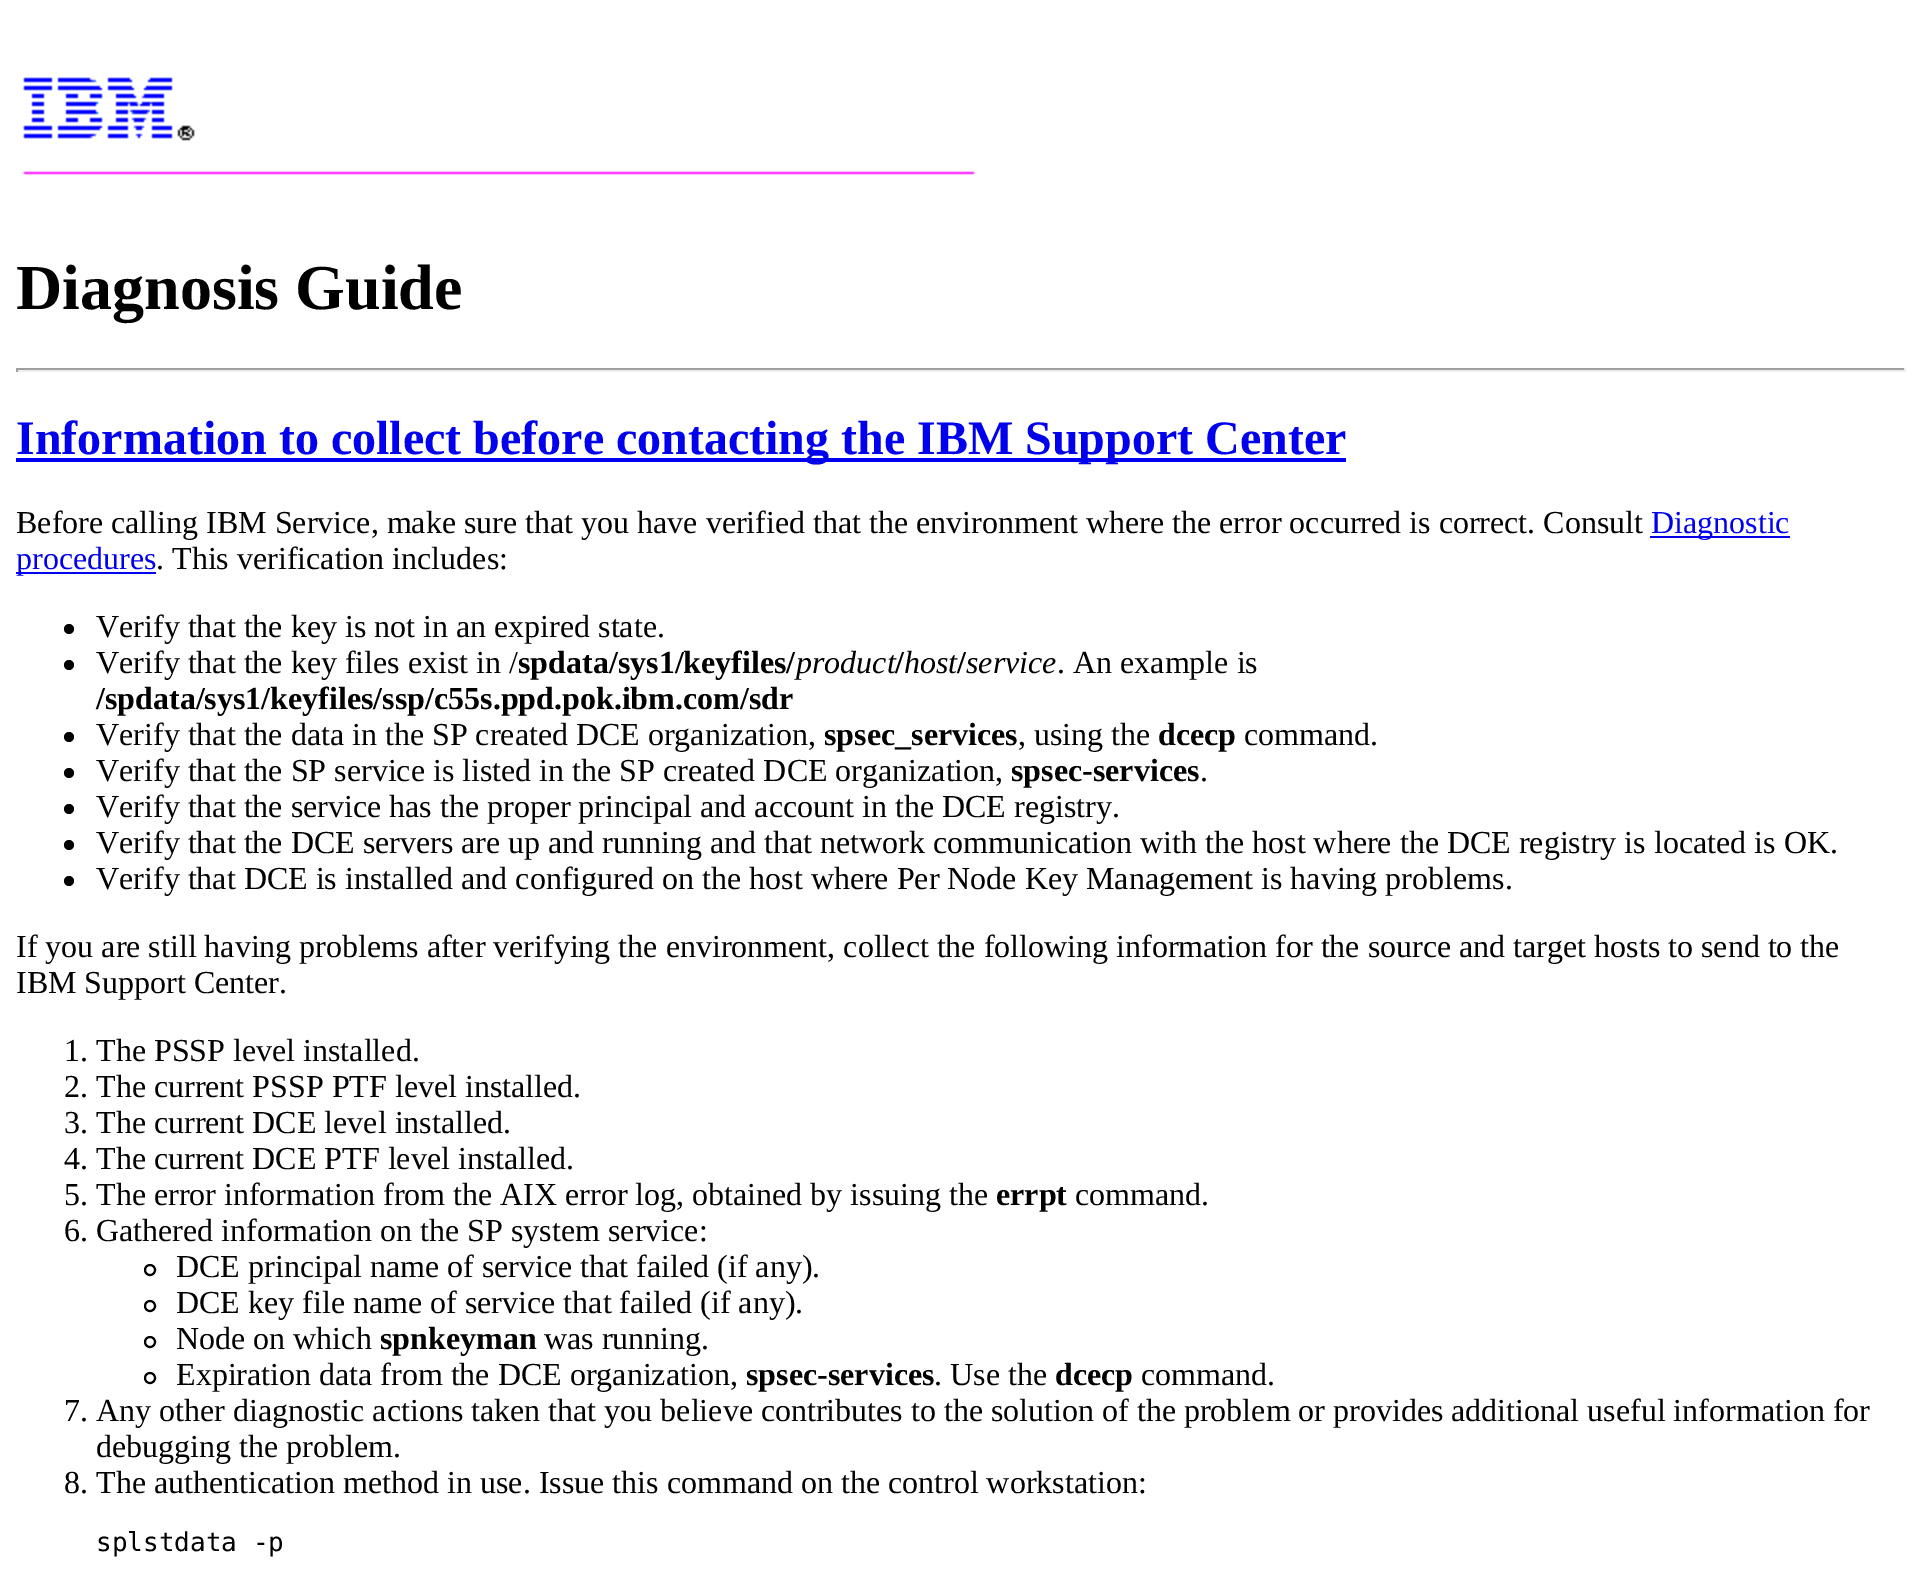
%!PS
<< /PageSize [1921 1584] >> setpagedevice
/picture { 5 dict begin { /h /w /y /x /name } { exch def } forall
  gsave x y translate w h scale
  w h 8 [w 0 0 h 0 0] name (r) file false 3 colorimage grestore end } def
0 1584 translate 1 -1 scale
4 setmiterlimit
1 setgray
0 0 1921 1584 rectfill
(img1.rgb) 23 77 952 98 picture
/LiberationSerif-Bold [64 0 0 -64 0 0] selectfont
0 setgray
16 309 moveto (Diagnosis Guide) show
0.624 setgray
16 368 1890 2 rectfill
0.933 setgray
1904 368 2 4 rectfill
16 370 1890 2 rectfill
0.624 setgray
16 368 2 4 rectfill
0 0 0.933 setrgbcolor
16 458 1330 4 rectfill
/LiberationSerif-Bold [48 0 0 -48 0 0] selectfont
16 454 moveto (Information to collect before contacting the IBM Support Center) show
/LiberationSerif-Regular [32 0 0 -32 0 0] selectfont
0 setgray
16 533 moveto (Before calling IBM Service, make sure that you have verified that the environment where the error occurred is correct. Consult) show
0 0 0.933 setrgbcolor
1650 536 140 2 rectfill
1651 533 moveto (Diagnostic) show
16 572 140 2 rectfill
16 569 moveto (procedures) show
0 setgray
156 569 moveto (. This verification includes:) show
newpath 69 629 5 0 360 arc closepath fill
96 637 moveto (Verify that the key is not in an expired state.) show
newpath 69 665 5 0 360 arc closepath fill
96 673 moveto (Verify that the key files exist in /) show
/LiberationSerif-Bold [32 0 0 -32 0 0] selectfont
518 673 moveto (spdata/sys1/keyfiles/) show
/LiberationSerif-Italic [32 0 0 -32 0 0] selectfont
796 673 moveto (product) show
/LiberationSerif-Bold [32 0 0 -32 0 0] selectfont
895 673 moveto (/) show
/LiberationSerif-Italic [32 0 0 -32 0 0] selectfont
904 673 moveto (host) show
/LiberationSerif-Bold [32 0 0 -32 0 0] selectfont
957 673 moveto (/) show
/LiberationSerif-Italic [32 0 0 -32 0 0] selectfont
966 673 moveto (service) show
/LiberationSerif-Regular [32 0 0 -32 0 0] selectfont
1057 673 moveto (. An example is) show
/LiberationSerif-Bold [32 0 0 -32 0 0] selectfont
96 709 moveto (/spdata/sys1/keyfiles/ssp/c55s.ppd.pok.ibm.com/sdr) show
newpath 69 737 5 0 360 arc closepath fill
/LiberationSerif-Regular [32 0 0 -32 0 0] selectfont
96 745 moveto (Verify that the data in the SP created DCE organization,) show
/LiberationSerif-Bold [32 0 0 -32 0 0] selectfont
824 745 moveto (spsec_services) show
/LiberationSerif-Regular [32 0 0 -32 0 0] selectfont
1018 745 moveto (, using the) show
/LiberationSerif-Bold [32 0 0 -32 0 0] selectfont
1158 745 moveto (dcecp) show
/LiberationSerif-Regular [32 0 0 -32 0 0] selectfont
1244 745 moveto (command.) show
newpath 69 773 5 0 360 arc closepath fill
96 781 moveto (Verify that the SP service is listed in the SP created DCE organization,) show
/LiberationSerif-Bold [32 0 0 -32 0 0] selectfont
1011 781 moveto (spsec-services) show
/LiberationSerif-Regular [32 0 0 -32 0 0] selectfont
1200 781 moveto (.) show
newpath 69 809 5 0 360 arc closepath fill
96 817 moveto (Verify that the service has the proper principal and account in the DCE registry.) show
newpath 69 845 5 0 360 arc closepath fill
96 853 moveto (Verify that the DCE servers are up and running and that network communication with the host where the DCE registry is located is OK.) show
newpath 69 881 5 0 360 arc closepath fill
96 889 moveto (Verify that DCE is installed and configured on the host where Per Node Key Management is having problems.) show
16 957 moveto (If you are still having problems after verifying the environment, collect the following information for the source and target hosts to send to the) show
16 993 moveto (IBM Support Center.) show
64 1061 moveto (1. The PSSP level installed.) show
64 1097 moveto (2. The current PSSP PTF level installed.) show
64 1133 moveto (3. The current DCE level installed.) show
64 1169 moveto (4. The current DCE PTF level installed.) show
64 1205 moveto (5. The error information from the AIX error log, obtained by issuing the) show
/LiberationSerif-Bold [32 0 0 -32 0 0] selectfont
996 1205 moveto (errpt) show
/LiberationSerif-Regular [32 0 0 -32 0 0] selectfont
1075 1205 moveto (command.) show
64 1241 moveto (6. Gathered information on the SP system service:) show
2 setlinewidth
newpath 150 1270 5 0 360 arc closepath stroke
176 1277 moveto (DCE principal name of service that failed \(if any\).) show
newpath 150 1306 5 0 360 arc closepath stroke
176 1313 moveto (DCE key file name of service that failed \(if any\).) show
newpath 150 1342 5 0 360 arc closepath stroke
176 1349 moveto (Node on which) show
/LiberationSerif-Bold [32 0 0 -32 0 0] selectfont
380 1349 moveto (spnkeyman) show
/LiberationSerif-Regular [32 0 0 -32 0 0] selectfont
544 1349 moveto (was running.) show
newpath 150 1378 5 0 360 arc closepath stroke
176 1385 moveto (Expiration data from the DCE organization,) show
/LiberationSerif-Bold [32 0 0 -32 0 0] selectfont
746 1385 moveto (spsec-services) show
/LiberationSerif-Regular [32 0 0 -32 0 0] selectfont
934 1385 moveto (. Use the) show
/LiberationSerif-Bold [32 0 0 -32 0 0] selectfont
1055 1385 moveto (dcecp) show
/LiberationSerif-Regular [32 0 0 -32 0 0] selectfont
1141 1385 moveto (command.) show
64 1421 moveto (7. Any other diagnostic actions taken that you believe contributes to the solution of the problem or provides additional useful information for) show
96 1457 moveto (debugging the problem.) show
64 1493 moveto (8. The authentication method in use. Issue this command on the control workstation:) show
/DejaVuSansMono-Regular [26 0 0 -26 0 0] selectfont
96 1551 moveto (splstdata -p) show
showpage
